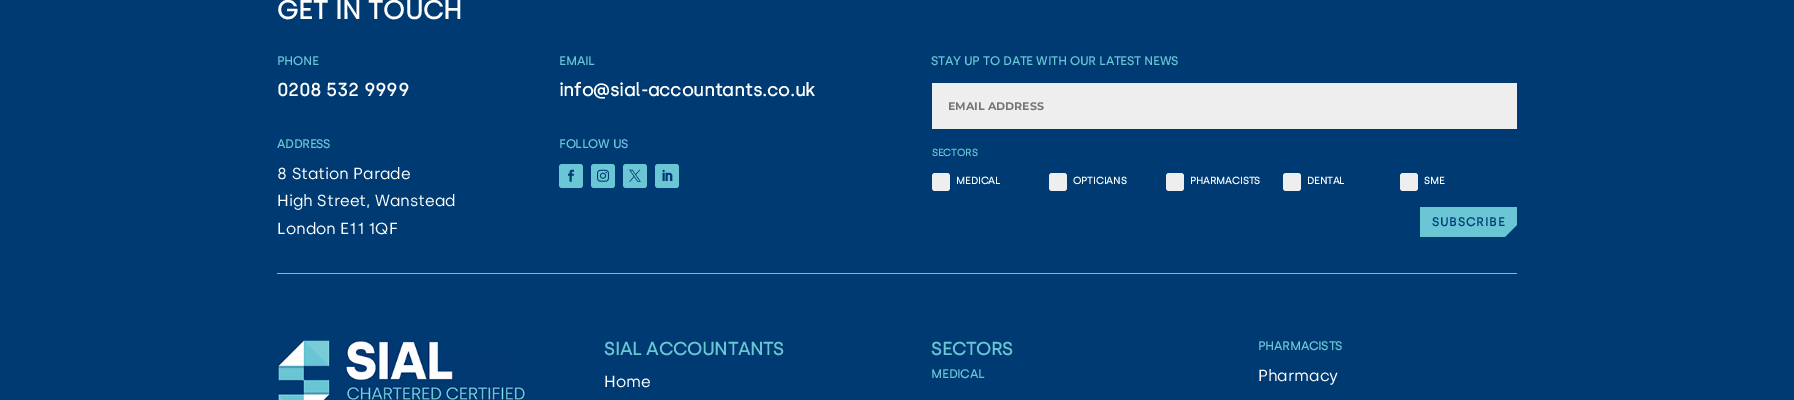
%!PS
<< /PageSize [1794 400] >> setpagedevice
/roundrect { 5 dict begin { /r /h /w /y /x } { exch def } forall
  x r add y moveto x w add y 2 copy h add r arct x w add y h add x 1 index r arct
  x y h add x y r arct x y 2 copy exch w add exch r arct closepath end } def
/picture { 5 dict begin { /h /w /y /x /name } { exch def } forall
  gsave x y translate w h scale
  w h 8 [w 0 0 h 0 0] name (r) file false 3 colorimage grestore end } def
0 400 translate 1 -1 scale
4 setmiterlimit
0 0.227 0.447 setrgbcolor
0 0 1794 400 rectfill
/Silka-Bold [26 0 0 -26 0 0] selectfont
1 setgray
277 19 moveto (GET IN TOUCH) show
0.416 0.773 0.835 setrgbcolor
277 273 1240 1 rectfill
/Silka-Bold [12 0 0 -12 0 0] selectfont
277 65 moveto (PHONE) show
/Silka-Bold [18 0 0 -18 0 0] selectfont
1 setgray
277 96 moveto (0208 532 9999) show
/Silka-Bold [12 0 0 -12 0 0] selectfont
0.416 0.773 0.835 setrgbcolor
277 148 moveto (ADDRESS) show
/Silka-Regular [16 0 0 -16 0 0] selectfont
1 setgray
277 179 moveto (8 Station Parade) show
277 206 moveto (High Street, Wanstead) show
277 234 moveto (London E11 1QF) show
/Silka-Bold [12 0 0 -12 0 0] selectfont
0.416 0.773 0.835 setrgbcolor
559 65 moveto (EMAIL) show
/Silka-Bold [18 0 0 -18 0 0] selectfont
1 setgray
559 96 moveto (info@sial-accountants.co.uk) show
/Silka-Bold [12 0 0 -12 0 0] selectfont
0.416 0.773 0.835 setrgbcolor
559 148 moveto (FOLLOW US) show
0.416 0.773 0.831 setrgbcolor
559 164 24 24 3 roundrect fill
(img1.rgb) 568 169 6 13 picture
591 164 24 24 3 roundrect fill
(img2.rgb) 597 169 12 13 picture
623 164 24 24 3 roundrect fill
(img3.rgb) 629 169 12 13 picture
655 164 24 24 3 roundrect fill
(img4.rgb) 662 169 11 12 picture
0.416 0.773 0.835 setrgbcolor
931 65 moveto (STAY UP TO DATE WITH OUR LATEST NEWS) show
0.933 setgray
932 83 585 46 rectfill
/Montserrat-Bold [11 0 0 -11 0 0] selectfont
0.459 setgray
948 110 moveto (EMAIL ADDRESS) show
/Silka-Bold [10 0 0 -10 0 0] selectfont
0.416 0.773 0.835 setrgbcolor
932 156 moveto (SECTORS) show
0.933 setgray
932 173 18 18 3 roundrect fill
1 setgray
956 184 moveto (MEDICAL) show
0.933 setgray
1049 173 18 18 3 roundrect fill
1 setgray
1073 184 moveto (OPTICIANS) show
0.933 setgray
1166 173 18 18 3 roundrect fill
1 setgray
1190 184 moveto (PHARMACISTS) show
0.933 setgray
1283 173 18 18 3 roundrect fill
1 setgray
1307 184 moveto (DENTAL) show
0.933 setgray
1400 173 18 18 3 roundrect fill
1 setgray
1424 184 moveto (SME) show
0.416 0.773 0.835 setrgbcolor
newpath 1420 207 moveto 1517 207 lineto 1517 225 lineto 1505 237 lineto 1420 237 lineto closepath fill
/Silka-Bold [12 0 0 -12 0 0] selectfont
0 0.227 0.447 setrgbcolor
1432 226 moveto 1 0 (SUBSCRIBE) ashow
(img5.rgb) 277 340 249 60 picture
/Silka-Bold [18 0 0 -18 0 0] selectfont
0.416 0.773 0.835 setrgbcolor
604 355 moveto (SIAL ACCOUNTANTS) show
/Silka-Regular [16 0 0 -16 0 0] selectfont
1 setgray
604 387 moveto (Home) show
/Silka-Bold [18 0 0 -18 0 0] selectfont
0.416 0.773 0.835 setrgbcolor
931 355 moveto (SECTORS) show
/Silka-Bold [12 0 0 -12 0 0] selectfont
931 378 moveto (MEDICAL) show
1258 350 moveto (PHARMACISTS) show
/Silka-Regular [16 0 0 -16 0 0] selectfont
1 setgray
1258 381 moveto (Pharmacy) show
showpage
